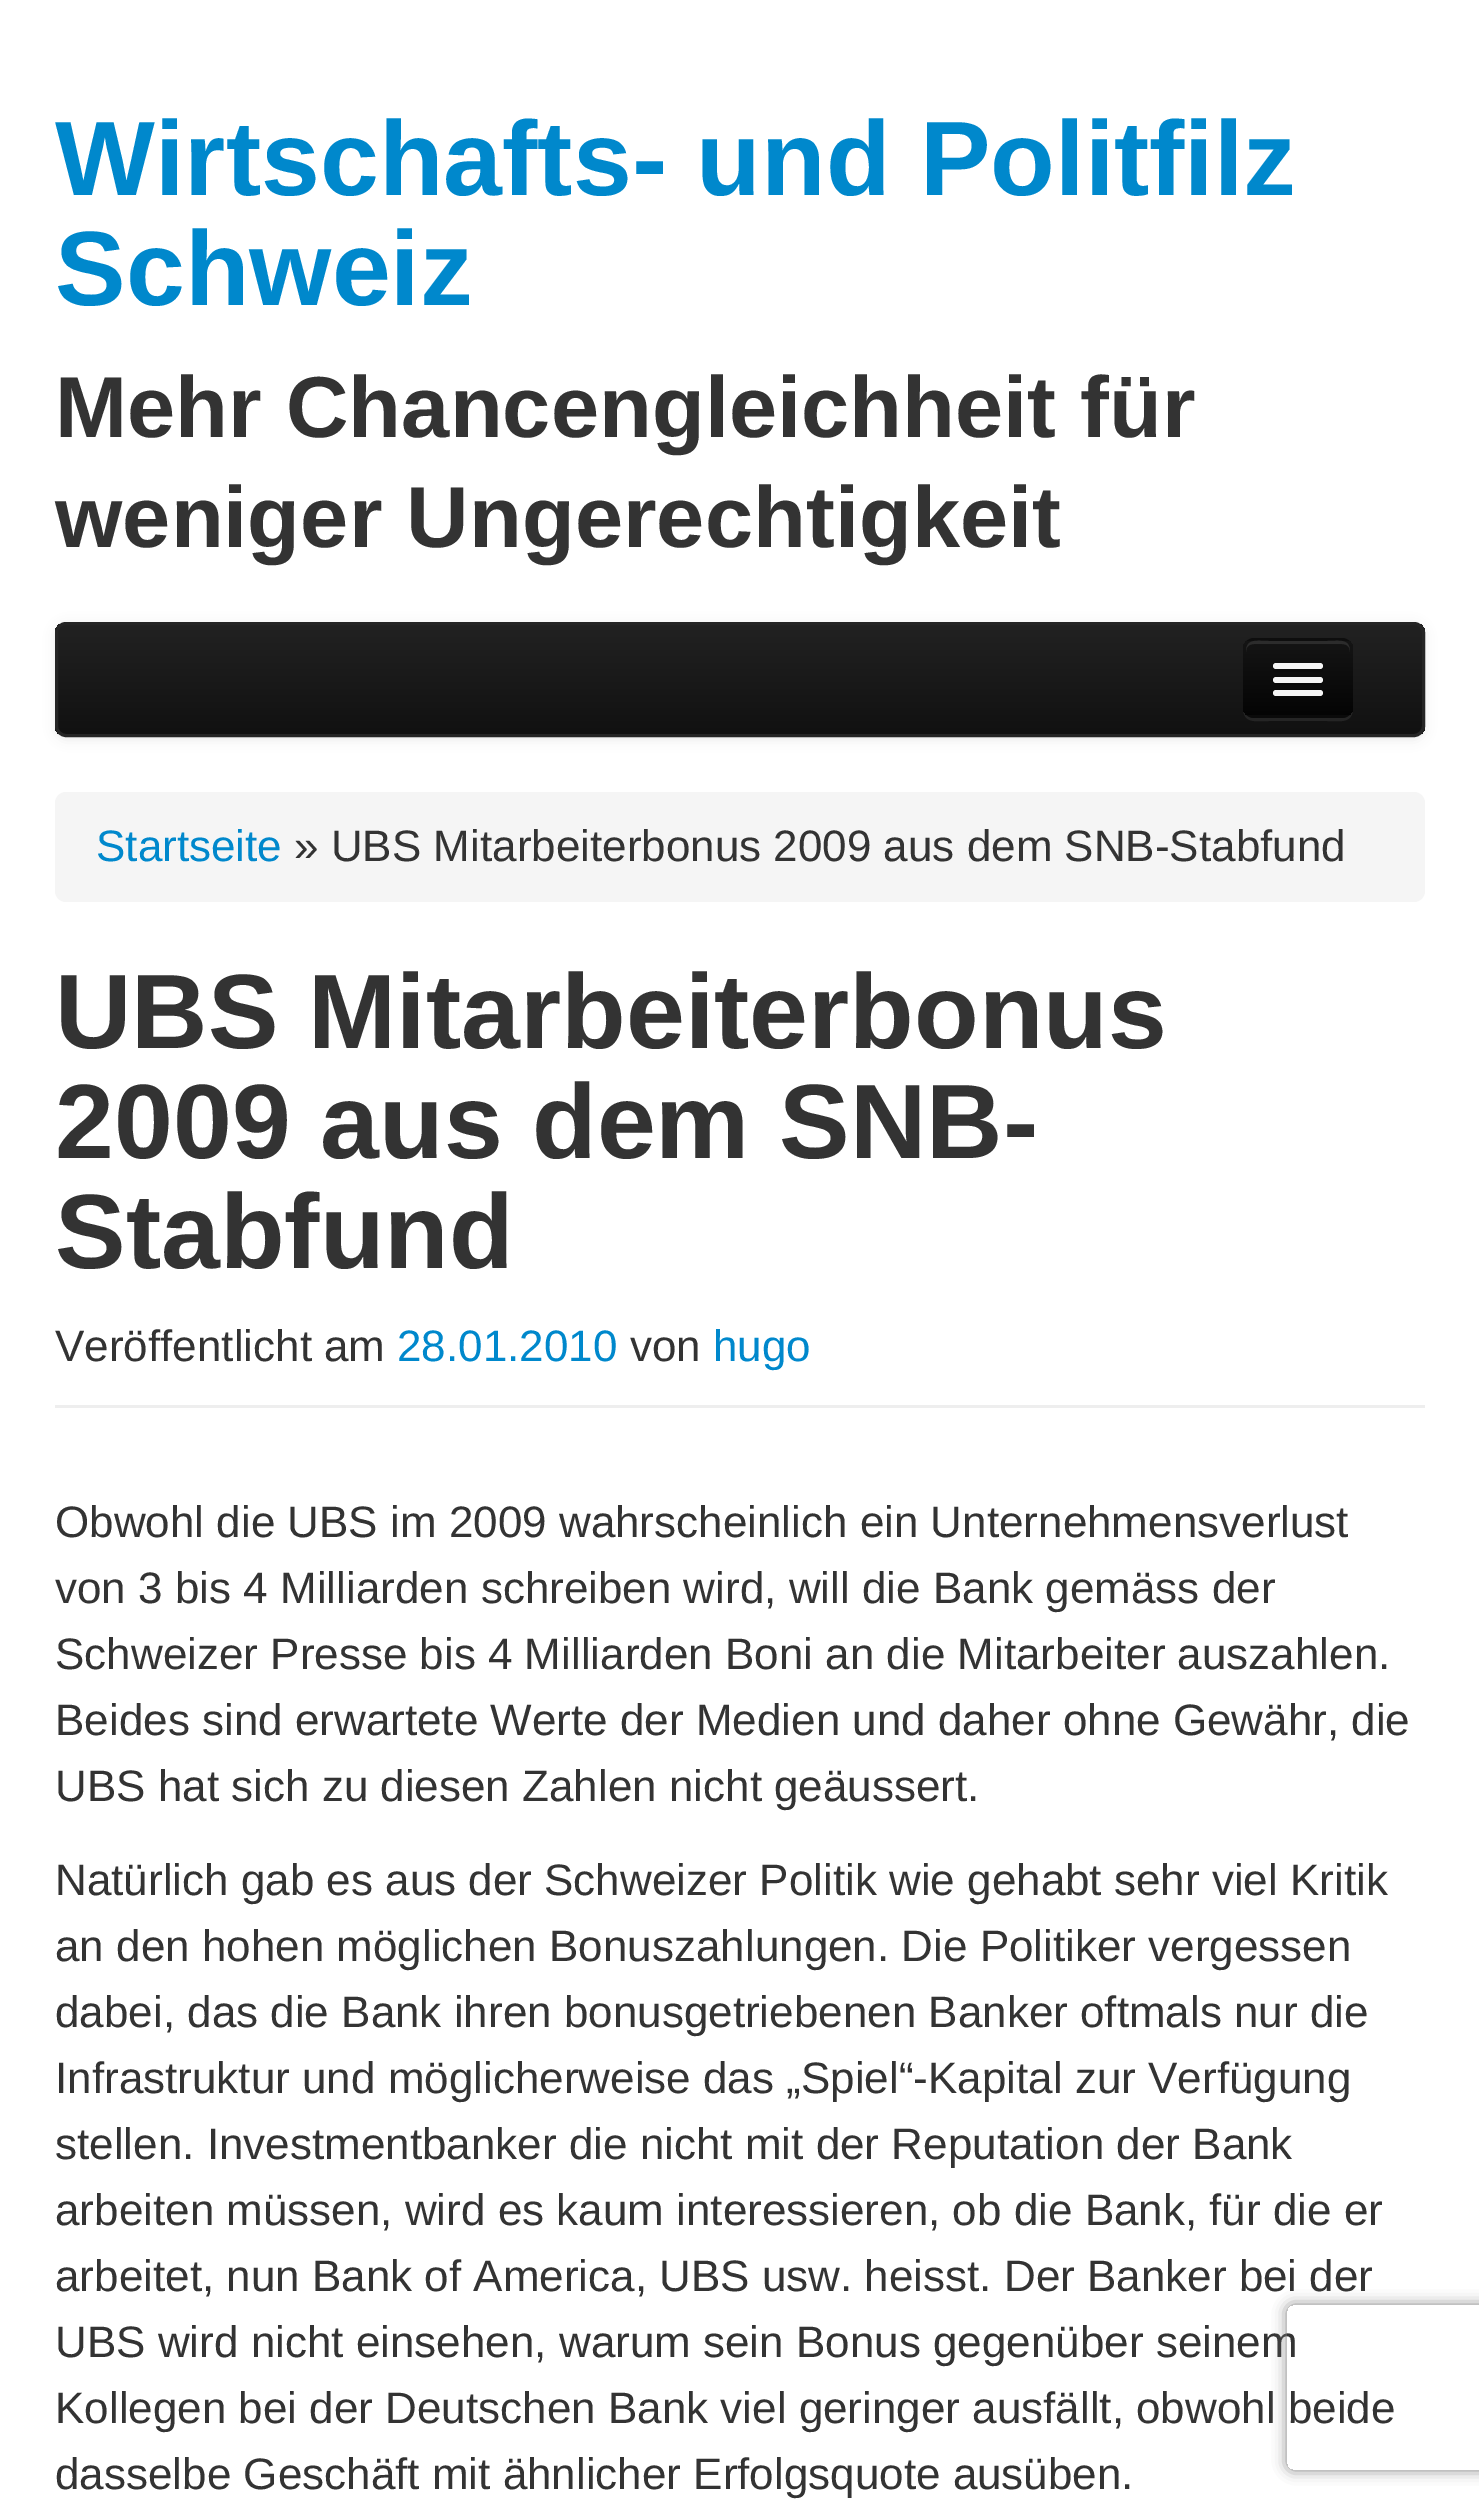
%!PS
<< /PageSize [1479 2507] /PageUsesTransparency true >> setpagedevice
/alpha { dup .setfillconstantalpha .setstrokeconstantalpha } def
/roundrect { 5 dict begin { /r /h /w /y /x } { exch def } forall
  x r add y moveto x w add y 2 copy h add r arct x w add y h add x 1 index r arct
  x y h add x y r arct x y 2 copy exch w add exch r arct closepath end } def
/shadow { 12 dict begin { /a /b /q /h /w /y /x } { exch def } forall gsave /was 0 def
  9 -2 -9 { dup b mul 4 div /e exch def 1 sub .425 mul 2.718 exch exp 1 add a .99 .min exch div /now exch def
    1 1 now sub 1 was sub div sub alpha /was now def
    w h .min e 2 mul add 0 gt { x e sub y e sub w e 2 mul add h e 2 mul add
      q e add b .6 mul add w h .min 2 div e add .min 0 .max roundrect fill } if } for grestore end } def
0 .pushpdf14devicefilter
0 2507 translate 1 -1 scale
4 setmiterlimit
1 setgray
0 0 1479 2507 rectfill
/LiberationSans-Bold [105.9 0 0 -105.9 0 0] selectfont
0 0.533 0.8 setrgbcolor
55 195 moveto (Wirtschafts- und Politfilz) show
55 305 moveto (Schweiz) show
/LiberationSans-Bold [86.6 0 0 -86.6 0 0] selectfont
0.2 setgray
55 437 moveto (Mehr Chancengleichheit für) show
55 547 moveto (weniger Ungerechtigkeit) show
0 setgray
55 624 1370 116 11 5.5 0.07 shadow
gsave
55 622 1370 115 11 roundrect clip newpath
gsave newpath 55 624 moveto 1425 624 lineto 1425 734 lineto 55 734 lineto closepath clip newpath
<< /ShadingType 2 /ColorSpace /DeviceRGB /Coords [740 624 740 734] /Extend [true true] /Function << /FunctionType 2 /Domain [0 1] /C0 [0.133 0.133 0.133] /C1 [0.067 0.067 0.067] /N 1 >> >> shfill grestore
grestore
0.145 setgray
3 setlinewidth
56.5 623.5 1367 112 9.5 roundrect stroke
newpath 1243 707 moveto 1243 724 1255 721 1269 721 curveto 1327 721 lineto 1341 721 1353 724 1353 707 curveto 1353 713 1348 718 1342 718 curveto 1254 718 lineto 1248 718 1243 713 1243 707 curveto closepath fill
0.055 setgray
1243 638 110 80 11 roundrect fill
gsave
1243 638 110 80 11 roundrect clip newpath
gsave newpath 1243 641 moveto 1353 641 lineto 1353 715 lineto 1243 715 lineto closepath clip newpath
<< /ShadingType 2 /ColorSpace /DeviceRGB /Coords [1298 641 1298 715] /Extend [true true] /Function << /FunctionType 2 /Domain [0 1] /C0 [0.082 0.082 0.082] /C1 [0.016 0.016 0.016] /N 1 >> >> shfill grestore
grestore
0.173 setgray
newpath 1254 644 moveto 1342 644 lineto 1347 644 1350 647 1350 652 curveto 1350 638 1339 641 1327 641 curveto 1269 641 lineto 1257 641 1246 638 1246 652 curveto 1246 647 1249 644 1254 644 curveto closepath fill
0.25 alpha
0 setgray
2.8 setlinewidth
newpath 1349 713.5 moveto 1347 715.5 1344.5 716.5 1342 716.5 curveto 1254 716.5 lineto 1251.5 716.5 1249 715.5 1247 713.5 curveto stroke
1 alpha
0.043 setgray
newpath 1274 667 moveto 1273 670 lineto 1274 674 1282 672 1283 672 curveto 1313 672 lineto 1314 672 1322 674 1323 670 curveto 1322 667 lineto 1320 668 lineto 1276 668 lineto closepath fill
0.961 setgray
1273 663 50 6 3 roundrect fill
0.031 setgray
newpath 1273 680 moveto 1270 686 1283 685 1283 685 curveto 1313 685 lineto 1313 685 1326 686 1323 680 curveto 1322 681 1321 682 1320 682 curveto 1276 682 lineto 1275 682 1274 681 1273 680 curveto closepath fill
0.961 setgray
1273 677 50 6 3 roundrect fill
1273 690 50 6 3 roundrect fill
55 792 1370 110 11 roundrect fill
/LiberationSans-Regular [44 0 0 -44 0 0] selectfont
0 0.533 0.8 setrgbcolor
96 861 moveto (Startseite) show
0.2 setgray
294 861 moveto (» UBS Mitarbeiterbonus 2009 aus dem SNB-Stabfund) show
0.933 setgray
55 1405 1370 3 rectfill
/LiberationSans-Bold [105.9 0 0 -105.9 0 0] selectfont
0.2 setgray
55 1048 moveto (UBS Mitarbeiterbonus) show
55 1158 moveto (2009 aus dem SNB-) show
55 1268 moveto (Stabfund) show
/LiberationSans-Regular [44 0 0 -44 0 0] selectfont
55 1361 moveto (Veröffentlicht am) show
0 0.533 0.8 setrgbcolor
397 1361 moveto (28.01.2010) show
0.2 setgray
630 1361 moveto (von) show
0 0.533 0.8 setrgbcolor
713 1361 moveto (hugo) show
0.2 setgray
55 1537 moveto (Obwohl die UBS im 2009 wahrscheinlich ein Unternehmensverlust) show
55 1603 moveto (von 3 bis 4 Milliarden schreiben wird, will die Bank gemäss der) show
55 1669 moveto (Schweizer Presse bis 4 Milliarden Boni an die Mitarbeiter auszahlen.) show
55 1735 moveto (Beides sind erwartete Werte der Medien und daher ohne Gewähr, die) show
55 1801 moveto (UBS hat sich zu diesen Zahlen nicht geäussert.) show
55 1895 moveto (Natürlich gab es aus der Schweizer Politik wie gehabt sehr viel Kritik) show
55 1961 moveto (an den hohen möglichen Bonuszahlungen. Die Politiker vergessen) show
55 2027 moveto (dabei, das die Bank ihren bonusgetriebenen Banker oftmals nur die) show
55 2093 moveto (Infrastruktur und möglicherweise das „Spiel“-Kapital zur Verfügung) show
55 2159 moveto (stellen. Investmentbanker die nicht mit der Reputation der Bank) show
55 2225 moveto (arbeiten müssen, wird es kaum interessieren, ob die Bank, für die er) show
55 2291 moveto (arbeitet, nun Bank of America, UBS usw. heisst. Der Banker bei der) show
55 2357 moveto (UBS wird nicht einsehen, warum sein Bonus gegenüber seinem) show
55 2423 moveto (Kollegen bei der Deutschen Bank viel geringer ausfällt, obwohl beide) show
55 2489 moveto (dasselbe Geschäft mit ähnlicher Erfolgsquote ausüben.) show
gsave
newpath 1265 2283 moveto 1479 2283 lineto 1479 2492 lineto 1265 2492 lineto closepath 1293 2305 moveto 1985 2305 lineto 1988.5 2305 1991 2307.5 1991 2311 curveto 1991 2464 lineto 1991 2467.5 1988.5 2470 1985 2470 curveto 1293 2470 lineto 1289.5 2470 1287 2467.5 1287 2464 curveto 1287 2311 lineto 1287 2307.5 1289.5 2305 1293 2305 curveto closepath eoclip newpath
0.502 setgray
1287 2305 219 165 6 7 1 shadow
grestore
.poppdf14devicefilter showpage
